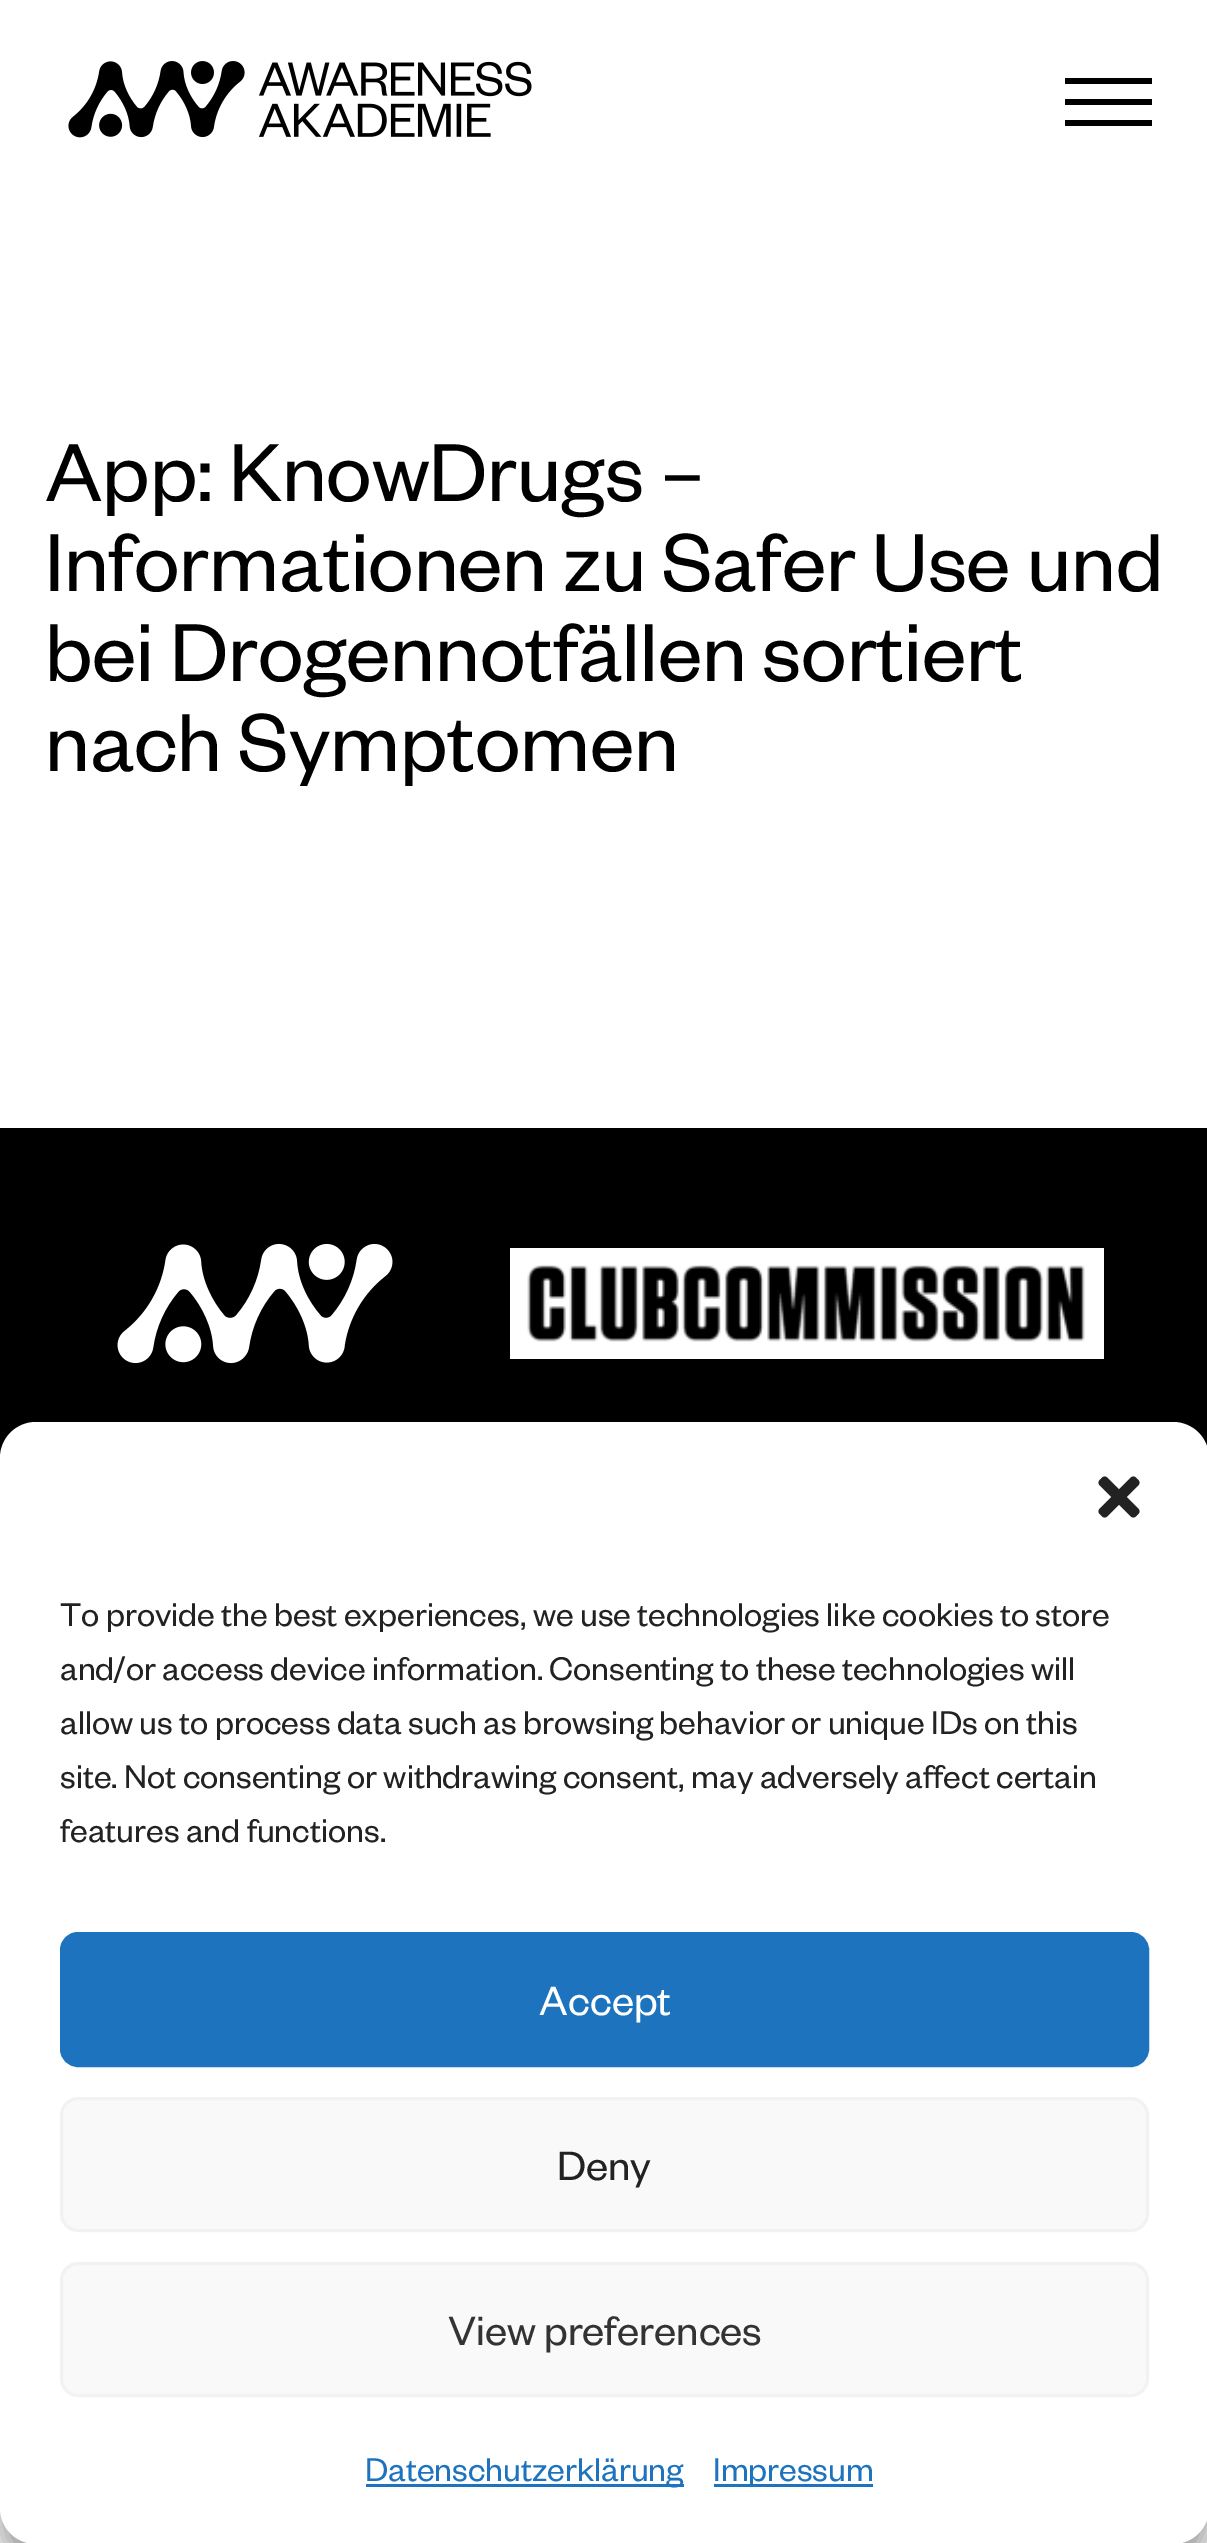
%!PS
<< /PageSize [1207 2543] /PageUsesTransparency true >> setpagedevice
/alpha { dup .setfillconstantalpha .setstrokeconstantalpha } def
/roundrect { 5 dict begin { /r /h /w /y /x } { exch def } forall
  x r add y moveto x w add y 2 copy h add r arct x w add y h add x 1 index r arct
  x y h add x y r arct x y 2 copy exch w add exch r arct closepath end } def
/shadow { 12 dict begin { /a /b /q /h /w /y /x } { exch def } forall gsave /was 0 def
  9 -2 -9 { dup b mul 4 div /e exch def 1 sub .425 mul 2.718 exch exp 1 add a .99 .min exch div /now exch def
    1 1 now sub 1 was sub div sub alpha /was now def
    w h .min e 2 mul add 0 gt { x e sub y e sub w e 2 mul add h e 2 mul add
      q e add b .6 mul add w h .min 2 div e add .min 0 .max roundrect fill } if } for grestore end } def
/picture { 5 dict begin { /h /w /y /x /name } { exch def } forall
  gsave x y translate w h scale
  w h 8 [w 0 0 h 0 0] name (r) file false 3 colorimage grestore end } def
0 .pushpdf14devicefilter
0 2543 translate 1 -1 scale
4 setmiterlimit
1 setgray
0 0 1207 2543 rectfill
(img1.rgb) 68 61 464 77 picture
0 setgray
1065 78 87 6 rectfill
1065 99 87 6 rectfill
1065 120 87 6 rectfill
/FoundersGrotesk-Regular [90 0 0 -90 0 0] selectfont
45 501 moveto (App: KnowDrugs –) show
45 591 moveto (Informationen zu Safer Use und) show
45 681 moveto (bei Drogennotfällen sortiert) show
45 771 moveto (nach Symptomen) show
0 1128 1207 330 rectfill
(img2.rgb) 117 1243 276 121 picture
(img3.rgb) 510 1248 594 111 picture
0 1440 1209 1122 36 9 0.23 shadow
0 1452 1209 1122 36 30 0.19 shadow
1 setgray
0 1422 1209 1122 36 roundrect fill
(img4.rgb) 1098 1476 42 42 picture
/FoundersGrotesk-Regular [36 0 0 -36 0 0] selectfont
0.133 setgray
60 1626 moveto (To provide the best experiences, we use technologies like cookies to store) show
60 1680 moveto (and/or access device information. Consenting to these technologies will) show
60 1734 moveto (allow us to process data such as browsing behavior or unique IDs on this) show
60 1788 moveto (site. Not consenting or withdrawing consent, may adversely affect certain) show
60 1842 moveto (features and functions.) show
0.118 0.451 0.745 setrgbcolor
61.5 1933.5 1086 132 16.5 roundrect gsave fill grestore
3 setlinewidth
stroke
/FoundersGrotesk-Regular [45 0 0 -45 0 0] selectfont
1 setgray
539 2015 moveto (Accept) show
0.976 setgray
61.5 2098.5 1086 132 16.5 roundrect gsave fill grestore
0.949 setgray
stroke
0.133 setgray
557 2180 moveto (Deny) show
0.976 setgray
61.5 2263.5 1086 132 16.5 roundrect gsave fill grestore
0.949 setgray
stroke
0.2 setgray
448 2345 moveto (View preferences) show
0.118 0.451 0.745 setrgbcolor
366 2484 318 3 rectfill
/FoundersGrotesk-Regular [36 0 0 -36 0 0] selectfont
365 2481 moveto (Datenschutzerklärung) show
714 2484 159 3 rectfill
713 2481 moveto (Impressum) show
.poppdf14devicefilter showpage
